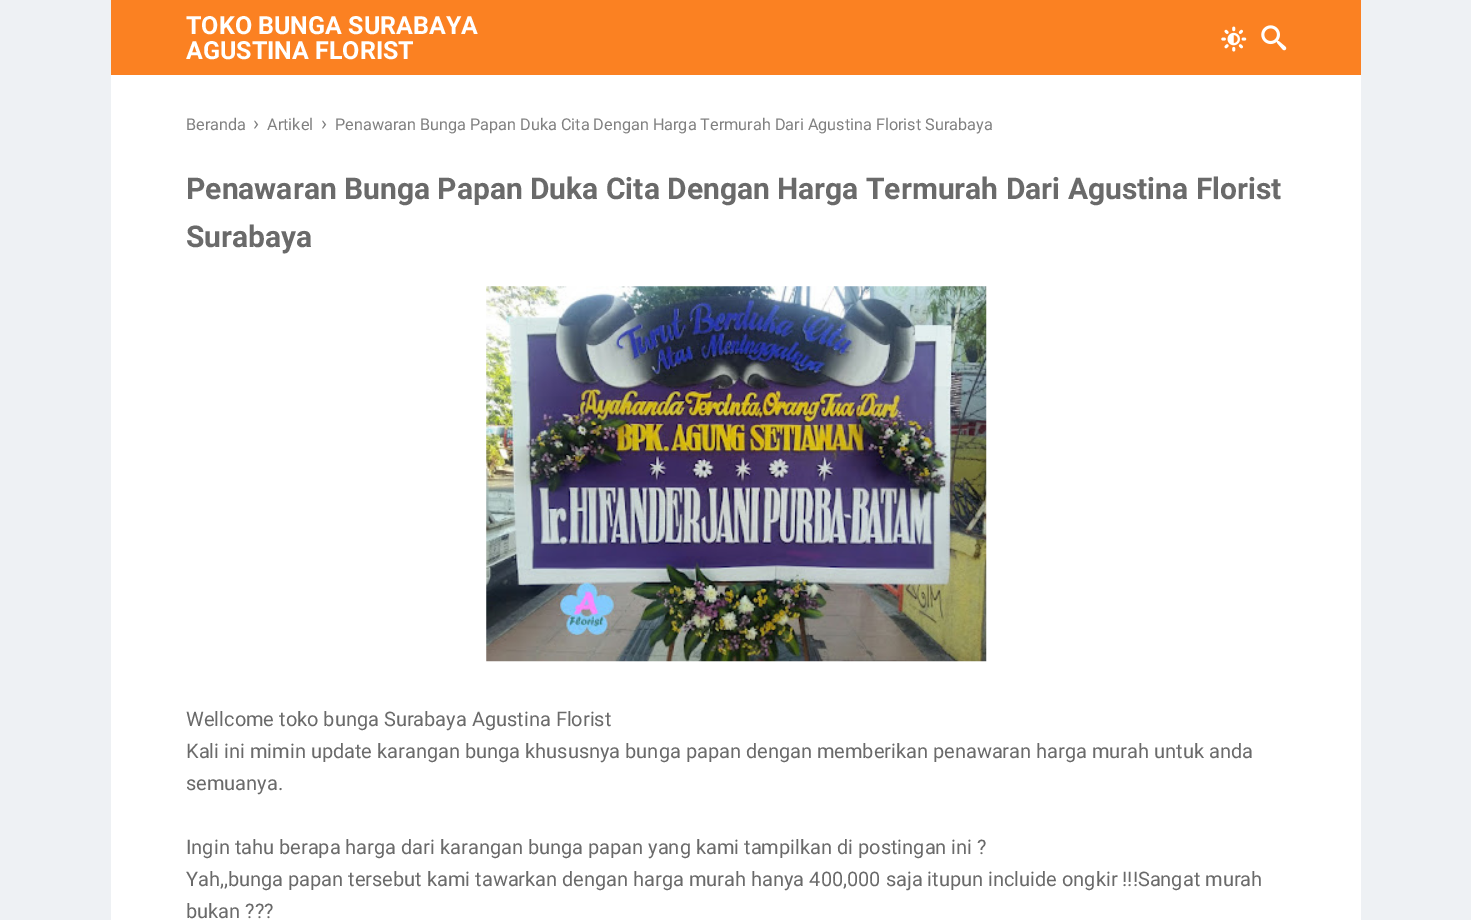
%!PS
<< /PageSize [1471 920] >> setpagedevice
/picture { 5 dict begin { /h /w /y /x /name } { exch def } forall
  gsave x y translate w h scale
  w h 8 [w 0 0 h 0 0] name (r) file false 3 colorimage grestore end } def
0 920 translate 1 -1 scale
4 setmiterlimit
0.933 0.945 0.957 setrgbcolor
0 0 1471 920 rectfill
1 setgray
111 75 1250 845 rectfill
0.984 0.506 0.133 setrgbcolor
111 0 1250 75 rectfill
/Roboto-Bold [25 0 0 -25 0 0] selectfont
1 setgray
186 34 moveto (TOKO BUNGA SURABAYA) show
186 59 moveto (AGUSTINA FLORIST) show
(img1.rgb) 1221 26 26 26 picture
(img2.rgb) 1261 25 26 26 picture
/Roboto-Regular [16.25 0 0 -16.25 0 0] selectfont
0.502 setgray
186 130 moveto (Beranda) show
/Roboto-Regular [20 0 0 -20 0 0] selectfont
253 130 moveto (›) show
/Roboto-Regular [16.25 0 0 -16.25 0 0] selectfont
267 130 moveto (Artikel) show
/Roboto-Regular [20 0 0 -20 0 0] selectfont
321 130 moveto (›) show
/Roboto-Regular [16.25 0 0 -16.25 0 0] selectfont
335 130 moveto (Penawaran Bunga Papan Duka Cita Dengan Harga Termurah Dari Agustina Florist Surabaya) show
/Roboto-Bold [30 0 0 -30 0 0] selectfont
0.416 setgray
186 199 moveto (Penawaran Bunga Papan Duka Cita Dengan Harga Termurah Dari Agustina Florist) show
186 247 moveto (Surabaya) show
(img3.rgb) 486 286 501 376 picture
/Roboto-Regular [20 0 0 -20 0 0] selectfont
186 726 moveto (Wellcome toko bunga Surabaya Agustina Florist) show
186 758 moveto (Kali ini mimin update karangan bunga khususnya bunga papan dengan memberikan penawaran harga murah untuk anda) show
186 790 moveto (semuanya.) show
186 854 moveto (Ingin tahu berapa harga dari karangan bunga papan yang kami tampilkan di postingan ini ?) show
186 886 moveto (Yah,,bunga papan tersebut kami tawarkan dengan harga murah hanya 400,000 saja itupun incluide ongkir !!!Sangat murah) show
186 918 moveto (bukan ???) show
showpage
